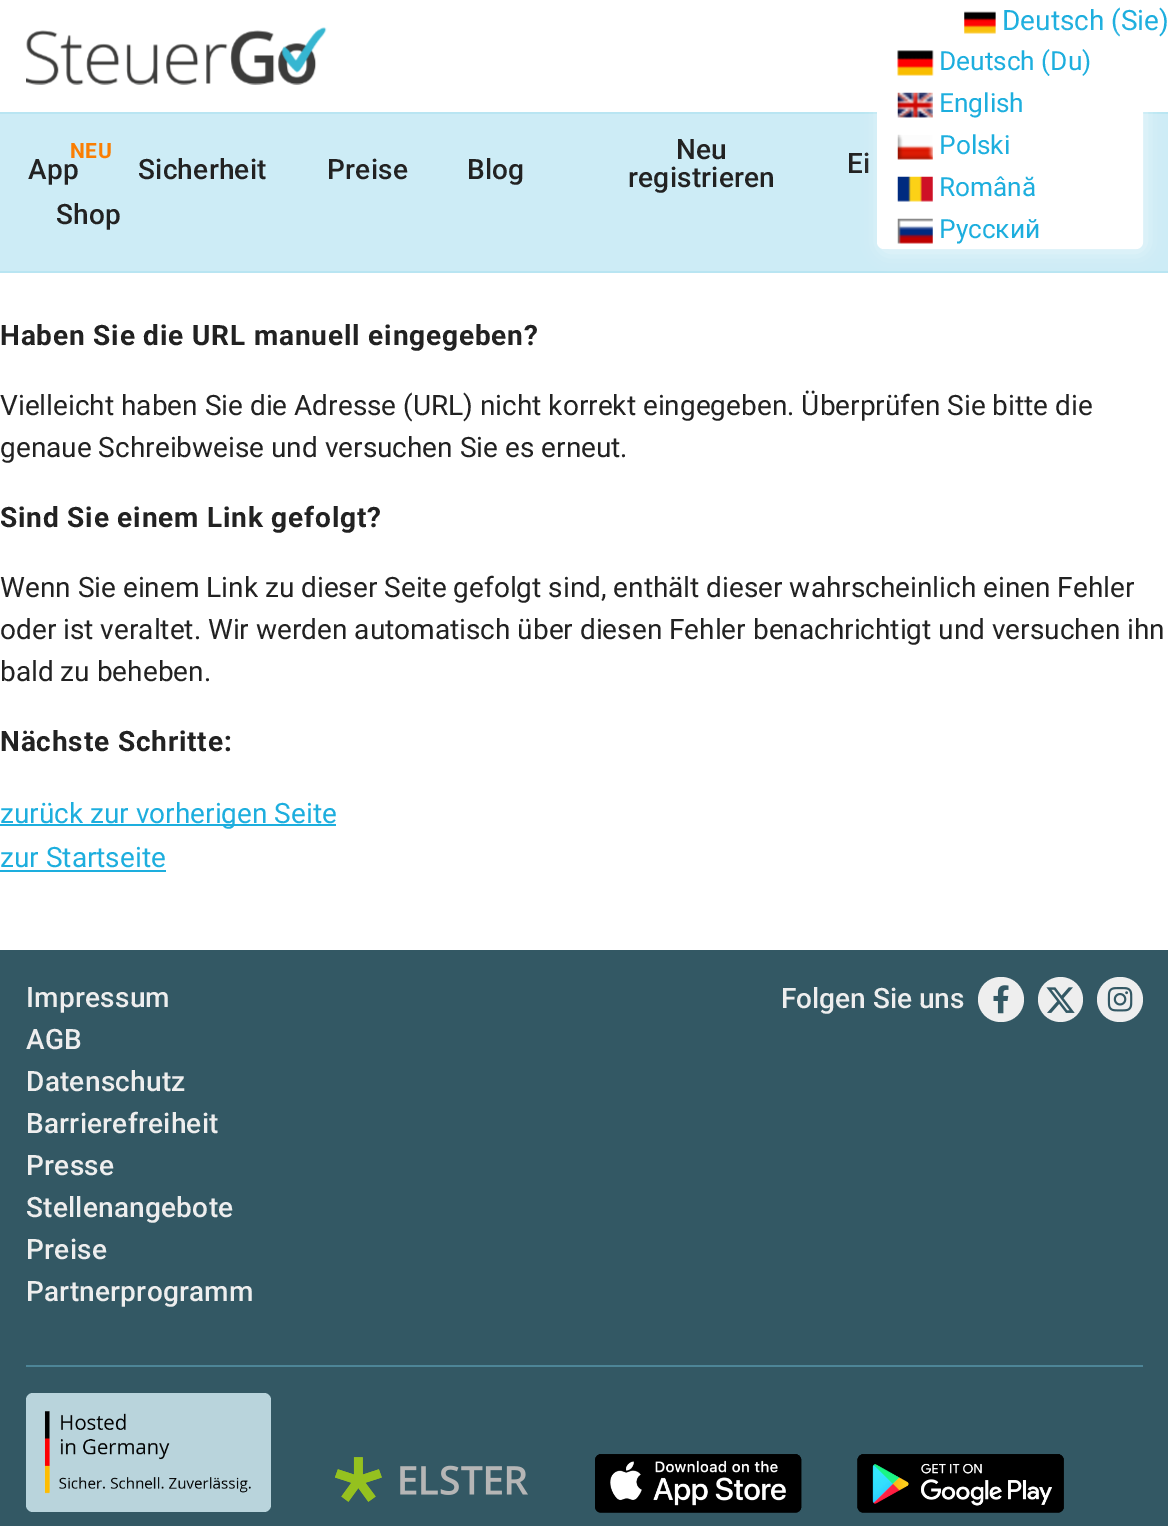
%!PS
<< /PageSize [1168 1526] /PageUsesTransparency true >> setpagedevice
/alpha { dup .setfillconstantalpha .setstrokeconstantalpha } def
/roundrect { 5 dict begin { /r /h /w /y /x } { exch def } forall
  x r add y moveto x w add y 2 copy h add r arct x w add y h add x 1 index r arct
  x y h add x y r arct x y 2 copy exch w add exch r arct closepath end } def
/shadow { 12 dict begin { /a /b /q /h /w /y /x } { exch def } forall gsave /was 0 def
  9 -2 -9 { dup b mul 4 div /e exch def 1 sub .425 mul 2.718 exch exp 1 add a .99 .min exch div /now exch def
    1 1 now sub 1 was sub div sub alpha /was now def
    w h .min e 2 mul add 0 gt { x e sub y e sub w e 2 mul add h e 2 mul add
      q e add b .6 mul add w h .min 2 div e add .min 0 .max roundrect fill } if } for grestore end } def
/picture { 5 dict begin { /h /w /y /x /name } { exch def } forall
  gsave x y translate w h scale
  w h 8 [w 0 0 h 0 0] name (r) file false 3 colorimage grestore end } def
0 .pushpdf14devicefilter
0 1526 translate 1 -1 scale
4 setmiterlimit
1 setgray
0 0 1168 1526 rectfill
0.804 0.925 0.965 setrgbcolor
0 114 1168 157 rectfill
0.725 0.898 0.949 setrgbcolor
0 112 1168 2 rectfill
0 271 1168 2 rectfill
/Roboto-Bold [21 0 0 -21 0 0] selectfont
0.98 0.494 0.008 setrgbcolor
70 158 moveto 0.5 0 (NEU) ashow
/Roboto-Medium [28 0 0 -28 0 0] selectfont
0.133 setgray
28 179 moveto 0.25 0 (App) ashow
138 179 moveto 0.25 0 (Sicherheit) ashow
327 179 moveto 0.25 0 (Preise) ashow
467 179 moveto 0.25 0 (Blog) ashow
56 224 moveto 0.25 0 (Shop) ashow
676 159 moveto 0.25 0 (Neu) ashow
628 187 moveto 0.25 0 (registrieren) ashow
847 173 moveto 0.25 0 (Ei) ashow
(img1.rgb) 964 11 32 23 picture
/Roboto-Regular [28 0 0 -28 0 0] selectfont
0.114 0.682 0.871 setrgbcolor
1002 30 moveto (Deutsch \(Sie\)) show
(img2.rgb) 26 27 301 58 picture
1 setgray
880 42 266 210 7 9 0.6 shadow
877 39 266 210 7 roundrect fill
(img3.rgb) 897 50 37 26 picture
/Roboto-Regular [26.25 0 0 -26.25 0 0] selectfont
0.114 0.682 0.871 setrgbcolor
939 70 moveto (Deutsch \(Du\)) show
(img4.rgb) 897 92 36 26 picture
939 112 moveto (English) show
(img5.rgb) 897 134 36 26 picture
939 154 moveto (Polski) show
(img6.rgb) 897 176 36 26 picture
939 196 moveto (Română) show
(img7.rgb) 897 218 36 26 picture
939 238 moveto (Pусский) show
/Roboto-Bold [28 0 0 -28 0 0] selectfont
0.133 setgray
0 345 moveto 0.85 0 (Haben Sie die URL manuell eingegeben?) ashow
/Roboto-Regular [28 0 0 -28 0 0] selectfont
0 415 moveto (Vielleicht haben Sie die Adresse \(URL\) nicht korrekt eingegeben. Überprüfen Sie bitte die) show
0 457 moveto (genaue Schreibweise und versuchen Sie es erneut.) show
/Roboto-Bold [28 0 0 -28 0 0] selectfont
0 527 moveto 0.85 0 (Sind Sie einem Link gefolgt?) ashow
/Roboto-Regular [28 0 0 -28 0 0] selectfont
0 597 moveto (Wenn Sie einem Link zu dieser Seite gefolgt sind, enthält dieser wahrscheinlich einen Fehler) show
0 639 moveto (oder ist veraltet. Wir werden automatisch über diesen Fehler benachrichtigt und versuchen ihn) show
0 681 moveto (bald zu beheben.) show
/Roboto-Bold [28 0 0 -28 0 0] selectfont
0 751 moveto 0.85 0 (Nächste Schritte:) ashow
0.114 0.682 0.871 setrgbcolor
0 824 336 2 rectfill
/Roboto-Regular [28 0 0 -28 0 0] selectfont
0 823 moveto (zurück zur vorherigen Seite) show
0 867 moveto (zur Startseite) show
0 870 166 2 rectfill
0.2 0.345 0.392 setrgbcolor
0 950 1168 576 rectfill
/Roboto-Medium [28 0 0 -28 0 0] selectfont
0.933 setgray
26 1007 moveto 0.25 0 (Impressum) ashow
26 1049 moveto 0.25 0 (AGB) ashow
26 1091 moveto 0.25 0 (Datenschutz) ashow
26 1133 moveto 0.25 0 (Barrierefreiheit) ashow
26 1175 moveto 0.25 0 (Presse) ashow
26 1217 moveto 0.25 0 (Stellenangebote) ashow
26 1259 moveto 0.25 0 (Preise) ashow
26 1301 moveto 0.25 0 (Partnerprogramm) ashow
781 1008 moveto (Folgen Sie uns) show
978 977 46 45 22.5 roundrect fill
(img8.rgb) 993 985 16 29 picture
newpath 1060.5 999.5 22.5 0 360 arc closepath fill
(img9.rgb) 1046 987 29 26 picture
1097 977 46 45 22.5 roundrect fill
(img10.rgb) 1107 987 26 25 picture
0.302 0.522 0.592 setrgbcolor
26 1365 1117 2 rectfill
0.725 0.831 0.863 setrgbcolor
26 1393 245 119 7 roundrect fill
(img11.rgb) 44 1411 207 83 picture
(img12.rgb) 335 1457 193 45 picture
(img13.rgb) 595 1454 207 59 picture
(img14.rgb) 857 1454 207 59 picture
.poppdf14devicefilter showpage
